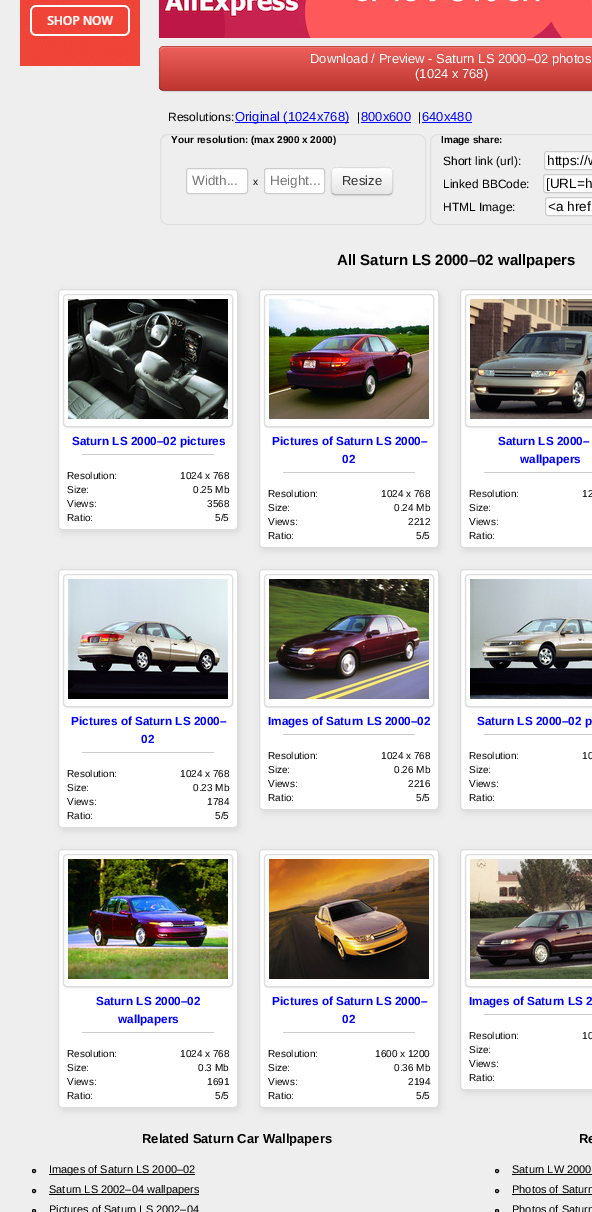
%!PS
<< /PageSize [592 1212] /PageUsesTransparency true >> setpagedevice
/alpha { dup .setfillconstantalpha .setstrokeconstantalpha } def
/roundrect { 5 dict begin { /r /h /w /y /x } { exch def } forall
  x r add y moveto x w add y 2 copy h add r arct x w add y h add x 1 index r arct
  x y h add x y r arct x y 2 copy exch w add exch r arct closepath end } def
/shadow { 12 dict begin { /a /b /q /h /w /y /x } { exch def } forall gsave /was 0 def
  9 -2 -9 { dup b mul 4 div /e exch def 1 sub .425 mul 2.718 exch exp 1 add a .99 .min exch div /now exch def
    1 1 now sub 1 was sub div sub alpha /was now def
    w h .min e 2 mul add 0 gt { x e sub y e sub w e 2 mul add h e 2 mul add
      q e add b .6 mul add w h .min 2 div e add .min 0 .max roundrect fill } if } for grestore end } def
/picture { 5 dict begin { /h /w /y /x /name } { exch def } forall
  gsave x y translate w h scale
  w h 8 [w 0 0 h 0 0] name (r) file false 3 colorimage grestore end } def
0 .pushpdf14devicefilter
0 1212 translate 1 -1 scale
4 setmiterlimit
0.933 setgray
0 0 592 1212 rectfill
(img1.rgb) 20 0 120 66 picture
(img2.rgb) 159 0 433 38 picture
0 setgray
159 47 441 45 5 1 0.05 shadow
0.855 0.31 0.286 setrgbcolor
159 46 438 45 5 roundrect fill
gsave
159 46 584 45 5 roundrect clip newpath
gsave newpath 159 47 moveto 592 47 lineto 592 90 lineto 159 90 lineto closepath clip newpath
<< /ShadingType 2 /ColorSpace /DeviceRGB /Coords [451 47 451 90] /Extend [true true] /Function << /FunctionType 2 /Domain [0 1] /C0 [0.933 0.373 0.357] /C1 [0.741 0.212 0.184] /N 1 >> >> shfill grestore
grestore
0.945 0.498 0.482 setrgbcolor
newpath 164 48 moveto 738 48 lineto 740 48 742 50 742 52 curveto 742 51 lineto 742 49 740 47 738 47 curveto 164 47 lineto 162 47 160 49 160 51 curveto 160 52 lineto 160 50 162 48 164 48 curveto closepath fill
0.25 alpha
0 setgray
newpath 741 89 moveto 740.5 90 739 90.5 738 90.5 curveto 164 90.5 lineto 163 90.5 161.5 90 161 89 curveto stroke
0.1 alpha
newpath 161 89 moveto 160 88.5 159.5 87 159.5 86 curveto 159.5 51 lineto 159.5 50 160 48.5 161 48 curveto 161.5 47 163 46.5 164 46.5 curveto 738 46.5 lineto 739 46.5 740.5 47 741 48 curveto 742 48.5 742.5 50 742.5 51 curveto 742.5 86 lineto 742.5 87 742 88.5 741 89 curveto stroke
/LiberationSans-Regular [13 0 0 -13 0 0] selectfont
1 alpha
1 setgray
310 63 moveto (Download / Preview - Saturn LS 2000–02 photos) show
415 78 moveto (\(1024 x 768\)) show
/LiberationSans-Regular [12 0 0 -12 0 0] selectfont
0 setgray
168 121 moveto (Resolutions:) show
0 0 1 setrgbcolor
235 122 114 1 rectfill
/LiberationSans-Regular [13 0 0 -13 0 0] selectfont
235 121 moveto (Original \(1024x768\)) show
/LiberationSans-Regular [12 0 0 -12 0 0] selectfont
0 setgray
357 121 moveto (|) show
/LiberationSans-Regular [13 0 0 -13 0 0] selectfont
0 0 1 setrgbcolor
361 121 moveto (800x600) show
361 122 50 1 rectfill
/LiberationSans-Regular [12 0 0 -12 0 0] selectfont
0 setgray
418 121 moveto (|) show
/LiberationSans-Regular [13 0 0 -13 0 0] selectfont
0 0 1 setrgbcolor
422 121 moveto (640x480) show
422 122 50 1 rectfill
0.875 setgray
160.5 134.5 265 90 7.5 roundrect stroke
/LiberationSans-Bold [10 0 0 -10 0 0] selectfont
0 setgray
171 143 moveto (Your resolution: \(max 2900 x 2000\)) show
1 setgray
186.5 168.5 61 25 2.5 roundrect gsave fill grestore
0.8 setgray
stroke
/LiberationSans-Regular [13.5 0 0 -13.5 0 0] selectfont
0.459 setgray
192 185 moveto (Width...) show
/LiberationSans-Regular [10 0 0 -10 0 0] selectfont
0 setgray
253 185 moveto (x) show
1 setgray
264.5 168.5 60 25 2.5 roundrect gsave fill grestore
0.8 setgray
stroke
/LiberationSans-Regular [13.5 0 0 -13.5 0 0] selectfont
0.459 setgray
270 185 moveto (Height...) show
0 setgray
331 168 62 28 4 1 0.05 shadow
0.961 setgray
331 167 62 28 4 roundrect fill
gsave
331 167 62 28 4 roundrect clip newpath
gsave newpath 331 168 moveto 393 168 lineto 393 194 lineto 331 194 lineto closepath clip newpath
<< /ShadingType 2 /ColorSpace /DeviceRGB /Coords [362 168 362 194] /Extend [true true] /Function << /FunctionType 2 /Domain [0 1] /C0 [1 1 1] /C1 [0.902 0.902 0.902] /N 1 >> >> shfill grestore
grestore
1 setgray
newpath 335 169 moveto 389 169 lineto 391 169 392 170 392 172 curveto 392 166 384 168 380 168 curveto 344 168 lineto 340 168 332 166 332 172 curveto 332 170 333 169 335 169 curveto closepath fill
0.25 alpha
0 setgray
newpath 391.5 193.5 moveto 389.5 194.5 lineto 334.5 194.5 lineto 332.5 193.5 lineto stroke
0.1 alpha
newpath 332.5 193.5 moveto 330.5 191 331.5 183.5 331.5 181 curveto 331.5 166.5 329.5 167.5 344 167.5 curveto 380 167.5 lineto 394.5 167.5 392.5 166.5 392.5 181 curveto 392.5 183.5 393.5 191 391.5 193.5 curveto stroke
/LiberationSans-Regular [13 0 0 -13 0 0] selectfont
1 alpha
0.2 setgray
342 185 moveto (Resize) show
0.875 setgray
430.5 134.5 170 90 7.5 roundrect stroke
/LiberationSans-Bold [10 0 0 -10 0 0] selectfont
0 setgray
441 143 moveto (Image share:) show
/LiberationSans-Regular [12 0 0 -12 0 0] selectfont
443 165 moveto (Short link \(url\):) show
1 setgray
544.5 151.5 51 18 2.5 roundrect gsave fill grestore
0.8 setgray
stroke
/LiberationSans-Regular [13.5 0 0 -13.5 0 0] selectfont
0 setgray
547 165 moveto (https://w) show
/LiberationSans-Regular [12 0 0 -12 0 0] selectfont
443 188 moveto (Linked BBCode:) show
1 setgray
543.5 174.5 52 18 2.5 roundrect gsave fill grestore
0.8 setgray
stroke
/LiberationSans-Regular [13.5 0 0 -13.5 0 0] selectfont
0 setgray
546 188 moveto ([URL=h) show
/LiberationSans-Regular [12 0 0 -12 0 0] selectfont
443 211 moveto (HTML Image:) show
1 setgray
545.5 197.5 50 18 2.5 roundrect gsave fill grestore
0.8 setgray
stroke
/LiberationSans-Regular [13.5 0 0 -13.5 0 0] selectfont
0 setgray
548 211 moveto (<a href) show
/LiberationSans-Bold [15 0 0 -15 0 0] selectfont
337 265 moveto (All Saturn LS 2000–02 wallpapers) show
60 292 180 241 4 3.5 0.07 shadow
1 setgray
58.5 289.5 179 240 3.5 roundrect gsave fill grestore
0.867 setgray
stroke
0 setgray
63 295 170 133 4 0.5 0.07 shadow
1 setgray
63.5 294.5 169 132 3.5 roundrect gsave fill grestore
0.867 setgray
stroke
(img3.rgb) 68 299 160 120 picture
/LiberationSans-Bold [11.75 0 0 -11.75 0 0] selectfont
0 0 1 setrgbcolor
72 445 moveto (Saturn LS 2000–02 pictures) show
0.8 setgray
82 454 132 1 rectfill
/LiberationSans-Regular [10 0 0 -10 0 0] selectfont
0 setgray
67 479 moveto (Resolution:) show
180 479 moveto (1024 x 768) show
67 493 moveto (Size:) show
193 493 moveto (0.25 Mb) show
67 507 moveto (Views:) show
207 507 moveto (3568) show
67 521 moveto (Ratio:) show
215 521 moveto (5/5) show
261 292 180 259 4 3.5 0.07 shadow
1 setgray
259.5 289.5 179 258 3.5 roundrect gsave fill grestore
0.867 setgray
stroke
0 setgray
264 295 170 133 4 0.5 0.07 shadow
1 setgray
264.5 294.5 169 132 3.5 roundrect gsave fill grestore
0.867 setgray
stroke
(img4.rgb) 269 299 160 120 picture
/LiberationSans-Bold [11.75 0 0 -11.75 0 0] selectfont
0 0 1 setrgbcolor
272 445 moveto (Pictures of Saturn LS 2000–) show
342 463 moveto (02) show
0.8 setgray
283 472 132 1 rectfill
/LiberationSans-Regular [10 0 0 -10 0 0] selectfont
0 setgray
268 497 moveto (Resolution:) show
381 497 moveto (1024 x 768) show
268 511 moveto (Size:) show
394 511 moveto (0.24 Mb) show
268 525 moveto (Views:) show
408 525 moveto (2212) show
268 539 moveto (Ratio:) show
416 539 moveto (5/5) show
462 292 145 259 4 3.5 0.07 shadow
1 setgray
460.5 289.5 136 258 3.5 roundrect gsave fill grestore
0.867 setgray
stroke
0 setgray
465 295 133 133 4 0.5 0.07 shadow
1 setgray
465.5 294.5 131 132 3.5 roundrect gsave fill grestore
0.867 setgray
stroke
(img5.rgb) 470 299 122 120 picture
/LiberationSans-Bold [11.75 0 0 -11.75 0 0] selectfont
0 0 1 setrgbcolor
498 445 moveto (Saturn LS 2000–) show
520 463 moveto (wallpapers) show
0.8 setgray
484 472 108 1 rectfill
/LiberationSans-Regular [10 0 0 -10 0 0] selectfont
0 setgray
469 497 moveto (Resolution:) show
582 497 moveto (12) show
469 511 moveto (Size:) show
469 525 moveto (Views:) show
469 539 moveto (Ratio:) show
60 572 180 259 4 3.5 0.07 shadow
1 setgray
58.5 569.5 179 258 3.5 roundrect gsave fill grestore
0.867 setgray
stroke
0 setgray
63 575 170 133 4 0.5 0.07 shadow
1 setgray
63.5 574.5 169 132 3.5 roundrect gsave fill grestore
0.867 setgray
stroke
(img6.rgb) 68 579 160 120 picture
/LiberationSans-Bold [11.75 0 0 -11.75 0 0] selectfont
0 0 1 setrgbcolor
71 725 moveto (Pictures of Saturn LS 2000–) show
141 743 moveto (02) show
0.8 setgray
82 752 132 1 rectfill
/LiberationSans-Regular [10 0 0 -10 0 0] selectfont
0 setgray
67 777 moveto (Resolution:) show
180 777 moveto (1024 x 768) show
67 791 moveto (Size:) show
193 791 moveto (0.23 Mb) show
67 805 moveto (Views:) show
207 805 moveto (1784) show
67 819 moveto (Ratio:) show
215 819 moveto (5/5) show
261 572 180 241 4 3.5 0.07 shadow
1 setgray
259.5 569.5 179 240 3.5 roundrect gsave fill grestore
0.867 setgray
stroke
0 setgray
264 575 170 133 4 0.5 0.07 shadow
1 setgray
264.5 574.5 169 132 3.5 roundrect gsave fill grestore
0.867 setgray
stroke
(img7.rgb) 269 579 160 120 picture
/LiberationSans-Bold [11.75 0 0 -11.75 0 0] selectfont
0 0 1 setrgbcolor
268 725 moveto (Images of Saturn LS 2000–02) show
0.8 setgray
283 734 132 1 rectfill
/LiberationSans-Regular [10 0 0 -10 0 0] selectfont
0 setgray
268 759 moveto (Resolution:) show
381 759 moveto (1024 x 768) show
268 773 moveto (Size:) show
394 773 moveto (0.26 Mb) show
268 787 moveto (Views:) show
408 787 moveto (2216) show
268 801 moveto (Ratio:) show
416 801 moveto (5/5) show
462 572 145 241 4 3.5 0.07 shadow
1 setgray
460.5 569.5 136 240 3.5 roundrect gsave fill grestore
0.867 setgray
stroke
0 setgray
465 575 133 133 4 0.5 0.07 shadow
1 setgray
465.5 574.5 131 132 3.5 roundrect gsave fill grestore
0.867 setgray
stroke
(img8.rgb) 470 579 122 120 picture
/LiberationSans-Bold [11.75 0 0 -11.75 0 0] selectfont
0 0 1 setrgbcolor
477 725 moveto (Saturn LS 2000–02 p) show
0.8 setgray
484 734 108 1 rectfill
/LiberationSans-Regular [10 0 0 -10 0 0] selectfont
0 setgray
469 759 moveto (Resolution:) show
582 759 moveto (10) show
469 773 moveto (Size:) show
469 787 moveto (Views:) show
469 801 moveto (Ratio:) show
60 852 180 259 4 3.5 0.07 shadow
1 setgray
58.5 849.5 179 258 3.5 roundrect gsave fill grestore
0.867 setgray
stroke
0 setgray
63 855 170 133 4 0.5 0.07 shadow
1 setgray
63.5 854.5 169 132 3.5 roundrect gsave fill grestore
0.867 setgray
stroke
(img9.rgb) 68 859 160 120 picture
/LiberationSans-Bold [11.75 0 0 -11.75 0 0] selectfont
0 0 1 setrgbcolor
96 1005 moveto (Saturn LS 2000–02) show
118 1023 moveto (wallpapers) show
0.8 setgray
82 1032 132 1 rectfill
/LiberationSans-Regular [10 0 0 -10 0 0] selectfont
0 setgray
67 1057 moveto (Resolution:) show
180 1057 moveto (1024 x 768) show
67 1071 moveto (Size:) show
198 1071 moveto (0.3 Mb) show
67 1085 moveto (Views:) show
207 1085 moveto (1691) show
67 1099 moveto (Ratio:) show
215 1099 moveto (5/5) show
261 852 180 259 4 3.5 0.07 shadow
1 setgray
259.5 849.5 179 258 3.5 roundrect gsave fill grestore
0.867 setgray
stroke
0 setgray
264 855 170 133 4 0.5 0.07 shadow
1 setgray
264.5 854.5 169 132 3.5 roundrect gsave fill grestore
0.867 setgray
stroke
(img10.rgb) 269 859 160 120 picture
/LiberationSans-Bold [11.75 0 0 -11.75 0 0] selectfont
0 0 1 setrgbcolor
272 1005 moveto (Pictures of Saturn LS 2000–) show
342 1023 moveto (02) show
0.8 setgray
283 1032 132 1 rectfill
/LiberationSans-Regular [10 0 0 -10 0 0] selectfont
0 setgray
268 1057 moveto (Resolution:) show
375 1057 moveto (1600 x 1200) show
268 1071 moveto (Size:) show
394 1071 moveto (0.36 Mb) show
268 1085 moveto (Views:) show
408 1085 moveto (2194) show
268 1099 moveto (Ratio:) show
416 1099 moveto (5/5) show
462 852 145 241 4 3.5 0.07 shadow
1 setgray
460.5 849.5 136 240 3.5 roundrect gsave fill grestore
0.867 setgray
stroke
0 setgray
465 855 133 133 4 0.5 0.07 shadow
1 setgray
465.5 854.5 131 132 3.5 roundrect gsave fill grestore
0.867 setgray
stroke
(img11.rgb) 470 859 122 120 picture
/LiberationSans-Bold [11.75 0 0 -11.75 0 0] selectfont
0 0 1 setrgbcolor
469 1005 moveto (Images of Saturn LS 2) show
0.8 setgray
484 1014 108 1 rectfill
/LiberationSans-Regular [10 0 0 -10 0 0] selectfont
0 setgray
469 1039 moveto (Resolution:) show
582 1039 moveto (10) show
469 1053 moveto (Size:) show
469 1067 moveto (Views:) show
469 1081 moveto (Ratio:) show
/LiberationSans-Bold [13 0 0 -13 0 0] selectfont
142 1143 moveto (Related Saturn Car Wallpapers) show
newpath 34 1171 1.5 0 360 arc closepath stroke
49 1174 146 1 rectfill
/LiberationSans-Regular [11 0 0 -11 0 0] selectfont
49 1173 moveto (Images of Saturn LS 2000–02) show
newpath 34 1191 1.5 0 360 arc closepath stroke
49 1194 150 1 rectfill
49 1193 moveto (Saturn LS 2002–04 wallpapers) show
newpath 34 1211 1.5 0 360 arc closepath stroke
49 1213 moveto (Pictures of Saturn LS 2002–04) show
/LiberationSans-Bold [13 0 0 -13 0 0] selectfont
579 1143 moveto (Re) show
newpath 497 1171 1.5 0 360 arc closepath stroke
/LiberationSans-Regular [11 0 0 -11 0 0] selectfont
512 1173 moveto (Saturn LW 2000) show
512 1174 80 1 rectfill
newpath 497 1191 1.5 0 360 arc closepath stroke
512 1193 moveto (Photos of Saturn) show
512 1194 80 1 rectfill
newpath 497 1211 1.5 0 360 arc closepath stroke
512 1213 moveto (Photos of Saturn) show
.poppdf14devicefilter showpage
